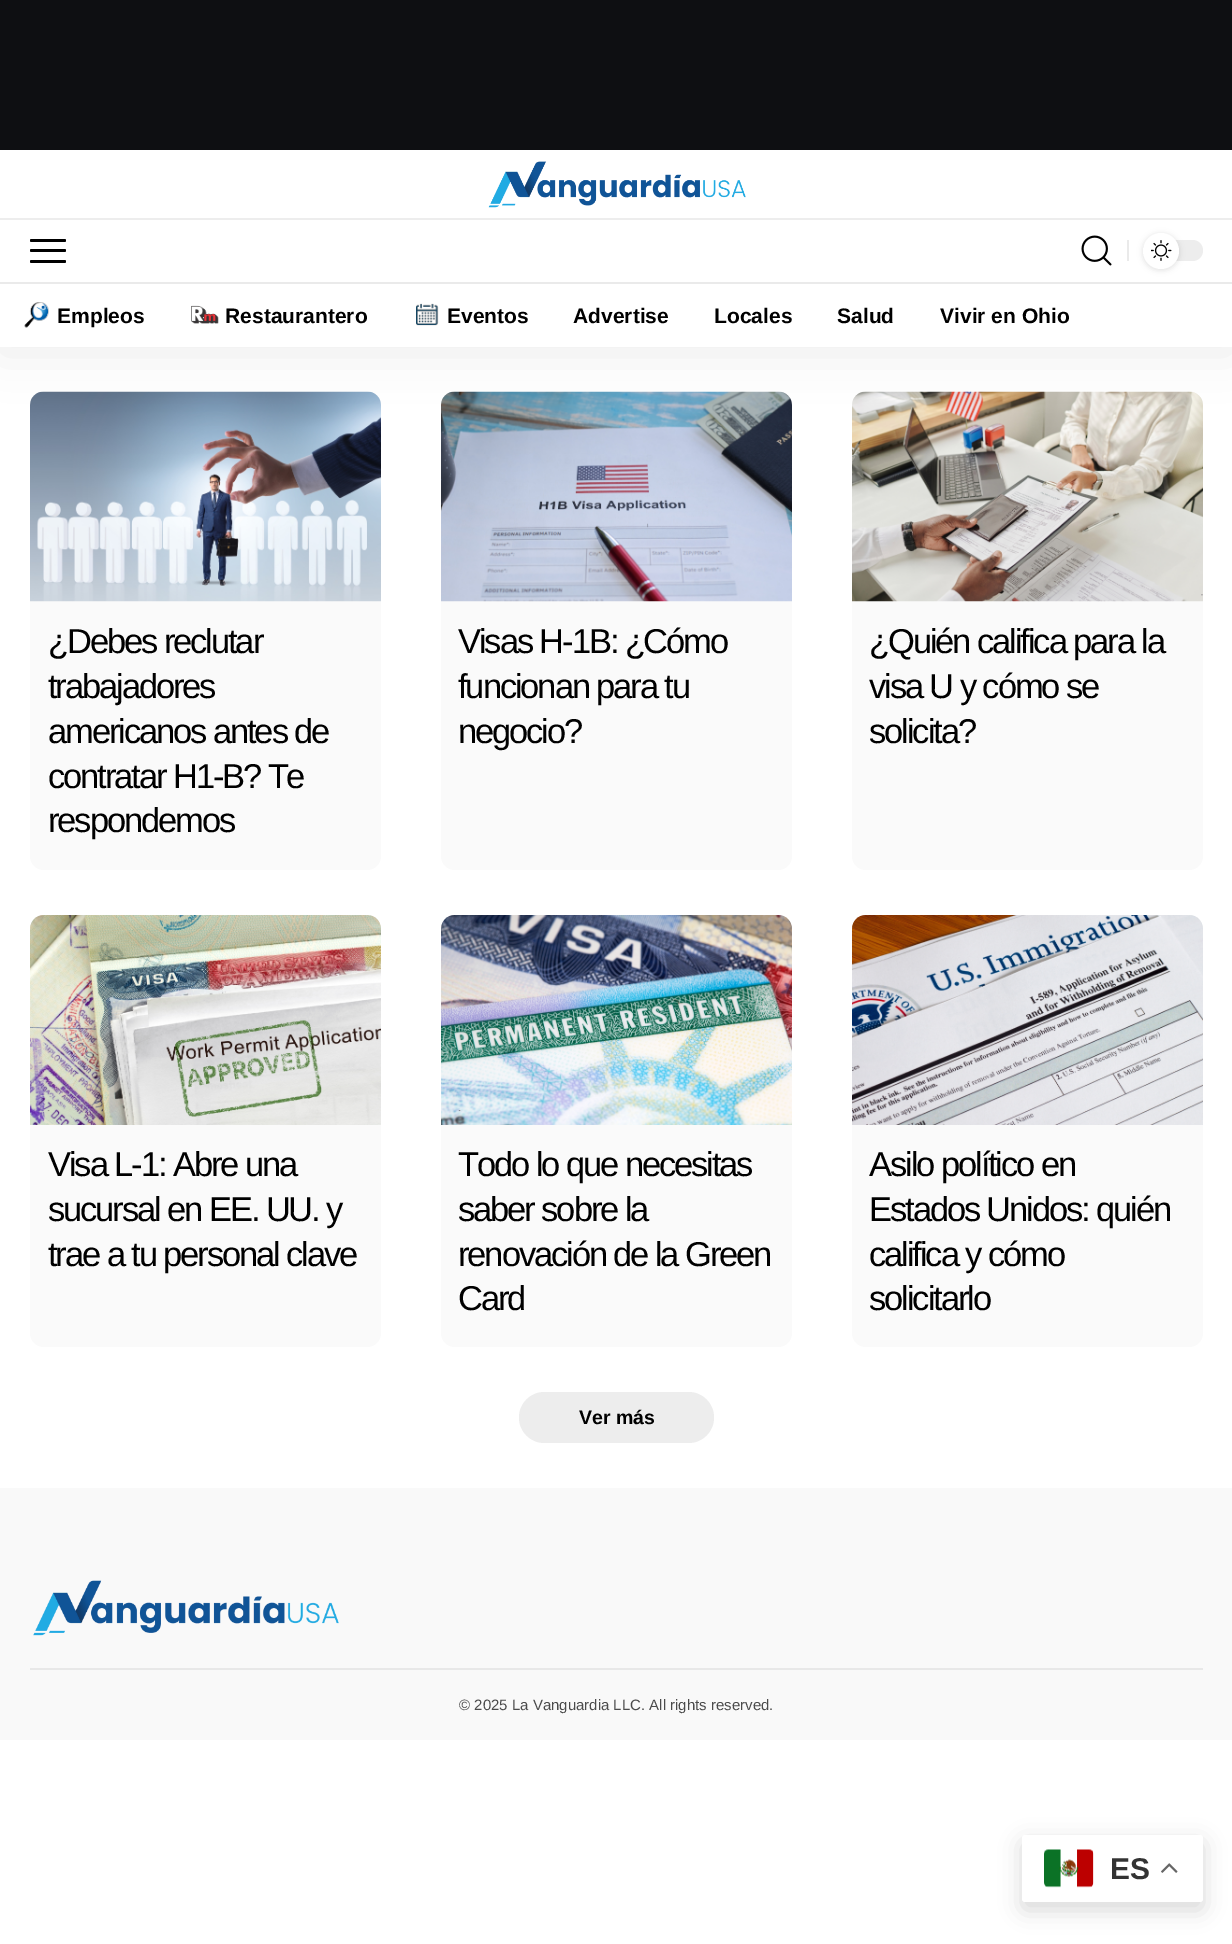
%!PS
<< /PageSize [1232 1944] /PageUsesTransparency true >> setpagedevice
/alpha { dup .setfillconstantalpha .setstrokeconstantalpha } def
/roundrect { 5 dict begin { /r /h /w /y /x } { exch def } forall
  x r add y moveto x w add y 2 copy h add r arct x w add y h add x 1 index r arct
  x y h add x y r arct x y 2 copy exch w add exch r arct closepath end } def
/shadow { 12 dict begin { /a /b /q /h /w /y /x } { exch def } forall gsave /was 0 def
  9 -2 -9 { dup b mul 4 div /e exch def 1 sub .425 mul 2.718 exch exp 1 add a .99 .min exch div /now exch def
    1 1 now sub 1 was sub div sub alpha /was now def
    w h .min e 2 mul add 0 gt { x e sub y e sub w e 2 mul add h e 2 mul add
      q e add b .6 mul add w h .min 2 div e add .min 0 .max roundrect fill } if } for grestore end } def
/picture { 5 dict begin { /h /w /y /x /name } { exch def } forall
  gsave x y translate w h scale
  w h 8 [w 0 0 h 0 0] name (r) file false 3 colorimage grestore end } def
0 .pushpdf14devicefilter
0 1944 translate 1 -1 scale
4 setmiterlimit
1 setgray
0 0 1232 1944 rectfill
0.055 0.059 0.071 setrgbcolor
0 0 1232 150 rectfill
0.98 setgray
30 392 351 478 14 roundrect fill
(img7.rgb) 30 391 351 211 picture
441 392 351 478 14 roundrect fill
(img8.rgb) 441 391 351 211 picture
852 392 351 478 14 roundrect fill
(img9.rgb) 852 391 351 211 picture
gsave
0 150 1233 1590 rectclip
0 setgray
0 156 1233 197 0 22.5 0.07 shadow
grestore
1 setgray
0 150 1232 197 rectfill
(img1.rgb) 488 161 258 47 picture
0.929 setgray
0 218 1232 2 rectfill
0 setgray
30 239 36 3 1.5 roundrect fill
30 249 36 3 1.5 roundrect fill
30 260 36 3 1.5 roundrect fill
(img2.rgb) 1081 235 31 31 picture
0.918 setgray
1127 240 2 21 rectfill
0.929 setgray
1143 240 60 21 10.5 roundrect fill
0 setgray
1143 234 36 36 18 3 0.12 shadow
1 setgray
newpath 1161 251 18 0 360 arc closepath fill
(img3.rgb) 1151 240 21 21 picture
0.918 setgray
0 282 1232 2 rectfill
(img4.rgb) 24 302 25 26 picture
/LiberationSans-Bold [21 0 0 -21 0 0] selectfont
0 setgray
57 323 moveto (Empleos) show
(img5.rgb) 191 305 28 19 picture
225 323 moveto (Restaurantero) show
(img6.rgb) 416 303 23 23 picture
447 323 moveto (Eventos) show
573 323 moveto (Advertise) show
714 323 moveto (Locales) show
837 323 moveto (Salud) show
940 323 moveto (Vivir en Ohio) show
/LiberationSans-Regular [34.5 0 0 -34.5 0 0] selectfont
48 653 moveto -2.1 0 (¿Debes reclutar) ashow
48 698 moveto -2.1 0 (trabajadores) ashow
48 743 moveto -2.1 0 (americanos antes de) ashow
48 788 moveto -2.1 0 (contratar H1-B? Te) ashow
48 832 moveto -2.1 0 (respondemos) ashow
458 653 moveto -2.1 0 (Visas H-1B: ¿Cómo) ashow
458 698 moveto -2.1 0 (funcionan para tu) ashow
458 743 moveto -2.1 0 (negocio?) ashow
869 653 moveto -2.1 0 (¿Quién califica para la) ashow
869 698 moveto -2.1 0 (visa U y cómo se) ashow
869 743 moveto -2.1 0 (solicita?) ashow
0.98 setgray
30 915 351 432 14 roundrect fill
(img10.rgb) 30 915 351 210 picture
0 setgray
48 1176 moveto -2.1 0 (Visa L-1: Abre una) ashow
48 1221 moveto -2.1 0 (sucursal en EE. UU. y) ashow
48 1266 moveto -2.1 0 (trae a tu personal clave) ashow
0.98 setgray
441 915 351 432 14 roundrect fill
(img11.rgb) 441 915 351 210 picture
0 setgray
458 1176 moveto -2.1 0 (Todo lo que necesitas) ashow
458 1221 moveto -2.1 0 (saber sobre la) ashow
458 1266 moveto -2.1 0 (renovación de la Green) ashow
458 1310 moveto -2.1 0 (Card) ashow
0.98 setgray
852 915 351 432 14 roundrect fill
(img12.rgb) 852 915 351 210 picture
0 setgray
869 1176 moveto -2.1 0 (Asilo político en) ashow
869 1221 moveto -2.1 0 (Estados Unidos: quién) ashow
869 1266 moveto -2.1 0 (califica y cómo) ashow
869 1310 moveto -2.1 0 (solicitarlo) ashow
0.929 setgray
519 1392 195 51 25.5 roundrect fill
/LiberationSans-Bold [19.5 0 0 -19.5 0 0] selectfont
0 setgray
579 1424 moveto (Ver más) show
0.976 setgray
0 1488 1232 252 rectfill
(img13.rgb) 33 1580 306 56 picture
0.91 setgray
30 1668 1173 2 rectfill
/LiberationSans-Regular [15 0 0 -15 0 0] selectfont
0.294 setgray
459 1710 moveto (© 2025 La Vanguardia LLC. All rights reserved.) show
0 setgray
1022 1842 181 68 3 11 0.15 shadow
1 setgray
1022 1835 181 67 3 roundrect fill
(img14.rgb) 1044 1849 50 39 picture
/LiberationSans-Bold [30 0 0 -30 0 0] selectfont
0.2 setgray
1110 1879 moveto (ES) show
(img15.rgb) 1161 1863 17 10 picture
.poppdf14devicefilter showpage
